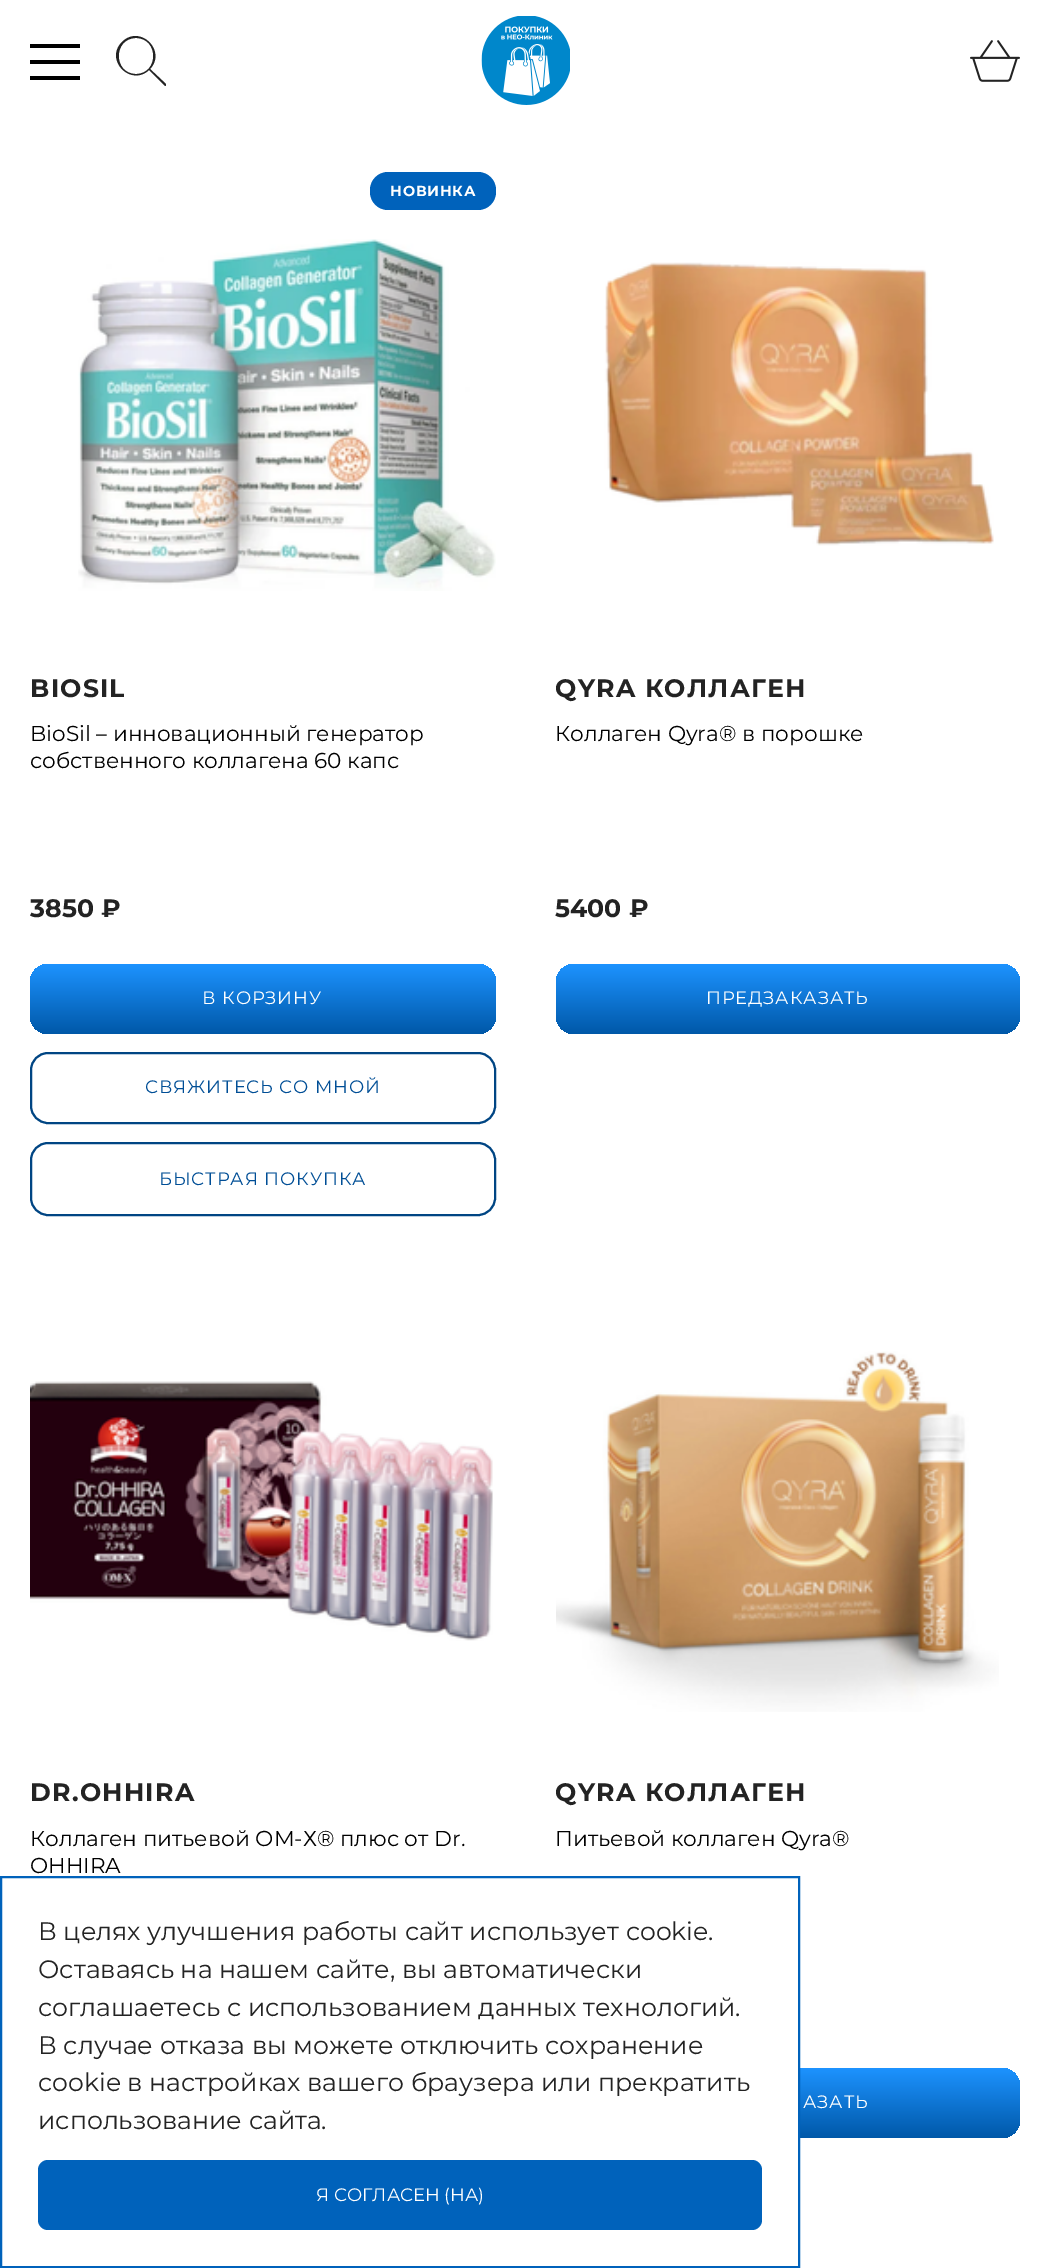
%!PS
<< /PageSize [1050 2268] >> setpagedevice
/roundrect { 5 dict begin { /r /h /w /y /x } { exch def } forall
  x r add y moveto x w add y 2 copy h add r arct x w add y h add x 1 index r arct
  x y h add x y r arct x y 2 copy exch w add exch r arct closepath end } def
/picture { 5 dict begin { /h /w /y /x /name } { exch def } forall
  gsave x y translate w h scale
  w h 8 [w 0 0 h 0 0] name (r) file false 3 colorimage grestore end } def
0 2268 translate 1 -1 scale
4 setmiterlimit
1 setgray
0 0 1050 2268 rectfill
0 setgray
30 44 50 4 rectfill
30 60 50 4 rectfill
30 76 50 4 rectfill
0.137 setgray
newpath 166 84 moveto 150 69 lineto 167 51 140 24 122 42 curveto 104 60 131 87 149 70 curveto 165 86 lineto 166 86 166 85 166 84 curveto closepath 136 74 moveto 113 74 113 38 136 38 curveto 159 38 159 74 136 74 curveto closepath fill
(img1.rgb) 481 16 89 89 picture
(img2.rgb) 970 40 50 42 picture
(img3.rgb) 78 239 418 352 picture
0 0.384 0.733 setrgbcolor
370 172 126 38 18 roundrect fill
/Montserrat-Bold [14.5 0 0 -14.5 0 0] selectfont
1 setgray
390 196 moveto 0.75 0 (НОВИНКА) ashow
/Montserrat-Bold [25.2 0 0 -25.2 0 0] selectfont
0.137 setgray
30 697 moveto 1.25 0 (BIOSIL) ashow
/Montserrat-Regular [21.6 0 0 -21.6 0 0] selectfont
0 setgray
30 741 moveto (BioSil – инновационный генератор) show
30 768 moveto (собственного коллагена 60 капс) show
/Montserrat-Bold [25.2 0 0 -25.2 0 0] selectfont
0.137 setgray
30 917 moveto (3850 ₽) show
gsave 30 964 466 70 18 roundrect clip newpath
<< /ShadingType 2 /ColorSpace /DeviceRGB /Coords [263 964 263 1034] /Extend [true true] /Function << /FunctionType 2 /Domain [0 1] /C0 [0.114 0.576 1] /C1 [0 0.345 0.659] /N 1 >> >> shfill grestore
/Montserrat-Regular [18 0 0 -18 0 0] selectfont
1 setgray
202 1004 moveto 0.9 0 (В КОРЗИНУ) ashow
0 0.271 0.514 setrgbcolor
2 setlinewidth
31 1053 464 70 17 roundrect stroke
0 0.306 0.588 setrgbcolor
145 1093 moveto 0.9 0 (СВЯЖИТЕСЬ СО МНОЙ) ashow
0 0.271 0.514 setrgbcolor
31 1143 464 72 17 roundrect stroke
0 0.306 0.588 setrgbcolor
159 1185 moveto 0.9 0 (БЫСТРАЯ ПОКУПКА) ashow
(img4.rgb) 604 262 390 284 picture
/Montserrat-Bold [25.2 0 0 -25.2 0 0] selectfont
0.137 setgray
555 697 moveto 1.25 0 (QYRA КОЛЛАГЕН) ashow
/Montserrat-Regular [21.6 0 0 -21.6 0 0] selectfont
0 setgray
555 741 moveto (Коллаген Qyra® в порошке) show
/Montserrat-Bold [25.2 0 0 -25.2 0 0] selectfont
0.137 setgray
555 917 moveto (5400 ₽) show
gsave 556 964 464 70 18 roundrect clip newpath
<< /ShadingType 2 /ColorSpace /DeviceRGB /Coords [788 964 788 1034] /Extend [true true] /Function << /FunctionType 2 /Domain [0 1] /C0 [0.114 0.576 1] /C1 [0 0.345 0.659] /N 1 >> >> shfill grestore
/Montserrat-Regular [18 0 0 -18 0 0] selectfont
1 setgray
706 1004 moveto 0.9 0 (ПРЕДЗАКАЗАТЬ) ashow
(img5.rgb) 30 1381 463 260 picture
/Montserrat-Bold [25.2 0 0 -25.2 0 0] selectfont
0.137 setgray
30 1801 moveto 1.25 0 (DR.OHHIRA) ashow
/Montserrat-Regular [21.6 0 0 -21.6 0 0] selectfont
0 setgray
30 1846 moveto (Коллаген питьевой ОМ-Х® плюс от Dr.) show
30 1873 moveto (OHHIRA) show
(img6.rgb) 556 1351 443 361 picture
/Montserrat-Bold [25.2 0 0 -25.2 0 0] selectfont
0.137 setgray
555 1801 moveto 1.25 0 (QYRA КОЛЛАГЕН) ashow
/Montserrat-Regular [21.6 0 0 -21.6 0 0] selectfont
0 setgray
555 1846 moveto (Питьевой коллаген Qyra®) show
gsave 556 2068 464 70 18 roundrect clip newpath
<< /ShadingType 2 /ColorSpace /DeviceRGB /Coords [788 2068 788 2138] /Extend [true true] /Function << /FunctionType 2 /Domain [0 1] /C0 [0.114 0.576 1] /C1 [0 0.345 0.659] /N 1 >> >> shfill grestore
/Montserrat-Regular [18 0 0 -18 0 0] selectfont
1 setgray
803 2108 moveto 0.9 0 (АЗАТЬ) ashow
556 2068 242 70 rectfill
0 0.384 0.733 setrgbcolor
1 1877 798 390 rectstroke
/Montserrat-Regular [25.2 0 0 -25.2 0 0] selectfont
0.137 setgray
38 1940 moveto (В целях улучшения работы сайт использует cookie.) show
38 1978 moveto (Оставаясь на нашем сайте, вы автоматически) show
38 2016 moveto (соглашаетесь с использованием данных технологий.) show
38 2054 moveto (В случае отказа вы можете отключить сохранение) show
38 2091 moveto (cookie в настройках вашего браузера или прекратить) show
38 2129 moveto (использование сайта.) show
0 0.384 0.733 setrgbcolor
38 2160 724 70 10 roundrect fill
/Montserrat-Regular [18 0 0 -18 0 0] selectfont
1 setgray
316 2201 moveto (Я СОГЛАСЕН \(НА\)) show
showpage
